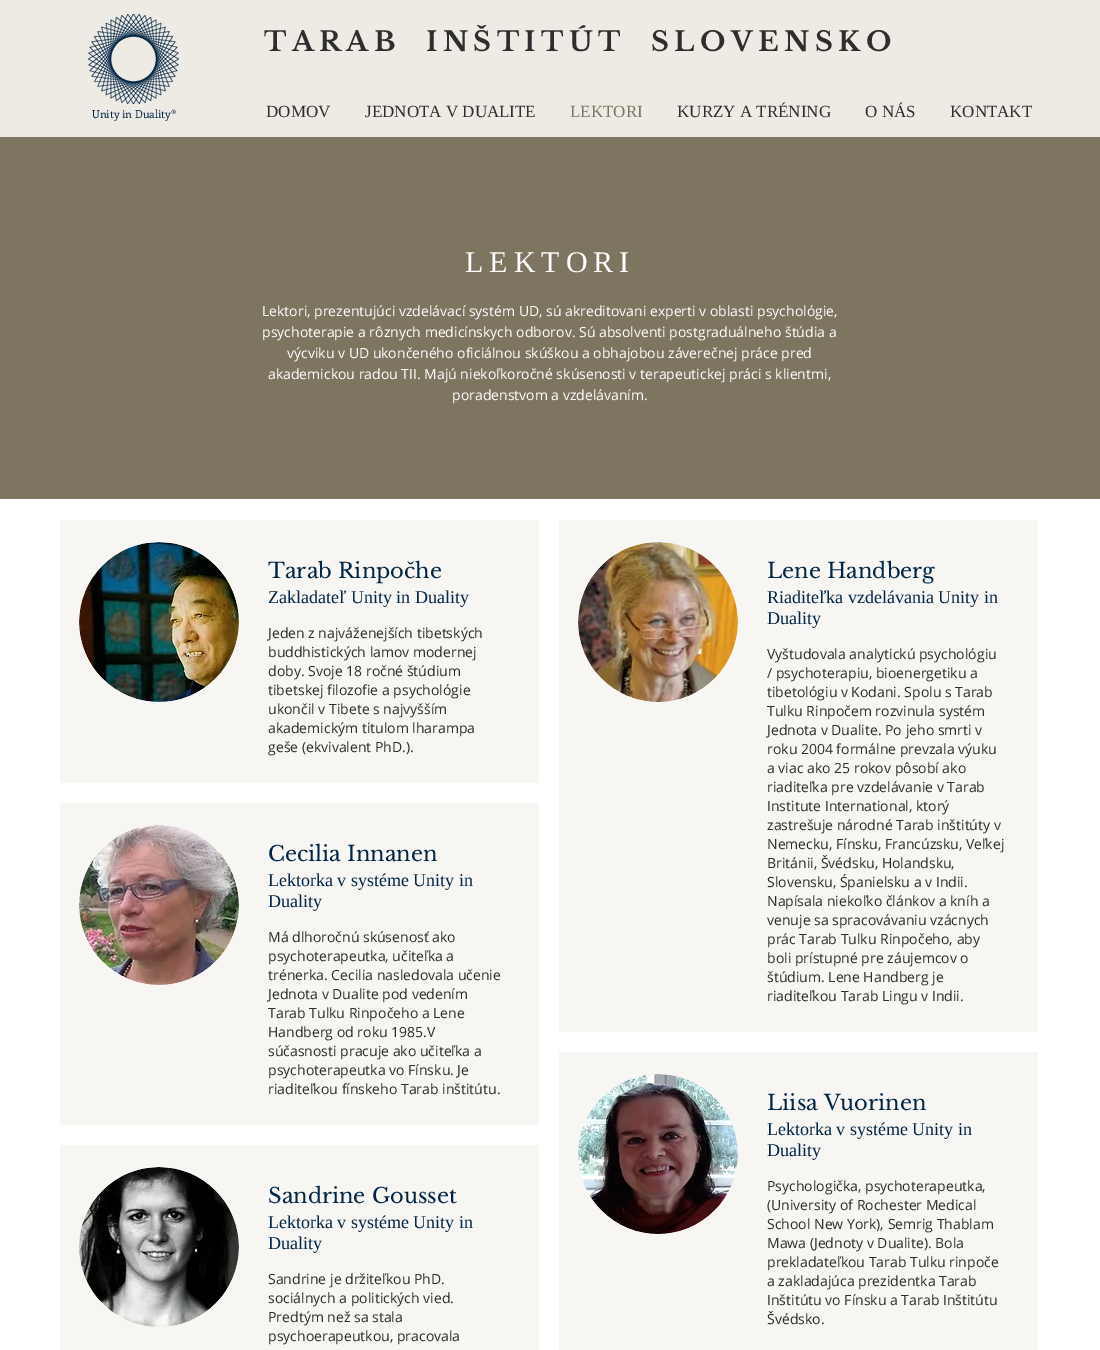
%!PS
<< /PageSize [1100 1350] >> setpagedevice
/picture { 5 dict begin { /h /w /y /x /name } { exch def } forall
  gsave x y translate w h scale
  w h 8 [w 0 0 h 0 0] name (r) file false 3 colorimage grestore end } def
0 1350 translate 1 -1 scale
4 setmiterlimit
1 setgray
0 0 1100 1350 rectfill
0.933 0.922 0.894 setrgbcolor
0 0 1100 137 rectfill
(img1.rgb) 88 14 91 90 picture
/LibreBaskerville-Bold [27 0 0 -27 0 0] selectfont
0.184 0.18 0.18 setrgbcolor
264 51 moveto 5.4 0 (TARAB  INŠTITÚT) ashow
651 51 moveto 5.4 0 (SLOVENSKO) ashow
/Enriqueta-Regular [11 0 0 -11 0 0] selectfont
0.004 0.149 0.275 setrgbcolor
92 118 moveto (Unity in Duality®) show
/LiberationSerif-Regular [17 0 0 -17 0 0] selectfont
0.184 0.18 0.18 setrgbcolor
266 117 moveto (DOMOV) show
365 117 moveto (JEDNOTA V DUALITE) show
0.49 0.459 0.376 setrgbcolor
570 117 moveto (LEKTORI) show
0.184 0.18 0.18 setrgbcolor
677 117 moveto (KURZY A TRÉNING) show
865 117 moveto (O NÁS) show
950 117 moveto (KONTAKT) show
0.49 0.459 0.376 setrgbcolor
0 137 1100 362 rectfill
/LiberationSerif-Regular [30 0 0 -30 0 0] selectfont
1 setgray
465 272 moveto 6 0 (LEKTORI) ashow
/OpenSans-Regular [14 0 0 -14 0 0] selectfont
262 316 moveto (Lektori, prezentujúci vzdelávací systém UD, sú akreditovani experti v oblasti psychológie,) show
262 337 moveto (psychoterapie a rôznych medicínskych odborov. Sú absolventi postgraduálneho štúdia a) show
287 358 moveto (výcviku v UD ukončeného oficiálnou skúškou a obhajobou záverečnej práce pred) show
268 379 moveto (akademickou radou TII. Majú niekoľkoročné skúsenosti v terapeutickej práci s klientmi,) show
452 400 moveto (poradenstvom a vzdelávaním.) show
0.969 0.965 0.949 setrgbcolor
60 520 479 263 rectfill
(img2.rgb) 79 542 160 160 picture
/LibreBaskerville-Regular [21 0 0 -21 0 0] selectfont
0.004 0.149 0.275 setrgbcolor
268 578 moveto (Tarab Rinpočhe) show
/LiberationSerif-Regular [18 0 0 -18 0 0] selectfont
268 603 moveto (Zakladateľ Unity in Duality) show
/OpenSans-Regular [14 0 0 -14 0 0] selectfont
0.184 0.18 0.18 setrgbcolor
268 638 moveto (Jeden z najváženejších tibetských) show
268 657 moveto (buddhistických lamov modernej) show
268 676 moveto (doby. Svoje 18 ročné štúdium) show
268 695 moveto (tibetskej filozofie a psychológie) show
268 714 moveto (ukončil v Tibete s najvyšším) show
268 733 moveto (akademickým titulom lharampa) show
268 752 moveto (geše \(ekvivalent PhD.\).) show
0.969 0.965 0.949 setrgbcolor
60 803 479 322 rectfill
(img3.rgb) 79 825 160 160 picture
/LibreBaskerville-Regular [21 0 0 -21 0 0] selectfont
0.004 0.149 0.275 setrgbcolor
268 861 moveto (Cecilia Innanen) show
/LiberationSerif-Regular [18 0 0 -18 0 0] selectfont
268 886 moveto (Lektorka v systéme Unity in) show
268 907 moveto (Duality) show
/OpenSans-Regular [14 0 0 -14 0 0] selectfont
0.184 0.18 0.18 setrgbcolor
268 942 moveto (Má dlhoročnú skúsenosť ako) show
268 961 moveto (psychoterapeutka, učiteľka a) show
268 980 moveto (trénerka. Cecilia nasledovala učenie) show
268 999 moveto (Jednota v Dualite pod vedením) show
268 1018 moveto (Tarab Tulku Rinpočeho a Lene) show
268 1037 moveto (Handberg od roku 1985.V) show
268 1056 moveto (súčasnosti pracuje ako učiteľka a) show
268 1075 moveto (psychoterapeutka vo Fínsku. Je) show
268 1094 moveto (riaditeľkou fínskeho Tarab inštitútu.) show
0.969 0.965 0.949 setrgbcolor
60 1145 479 205 rectfill
(img4.rgb) 79 1167 160 160 picture
/LibreBaskerville-Regular [21 0 0 -21 0 0] selectfont
0.004 0.149 0.275 setrgbcolor
268 1203 moveto (Sandrine Gousset) show
/LiberationSerif-Regular [18 0 0 -18 0 0] selectfont
268 1228 moveto (Lektorka v systéme Unity in) show
268 1249 moveto (Duality) show
/OpenSans-Regular [14 0 0 -14 0 0] selectfont
0.184 0.18 0.18 setrgbcolor
268 1284 moveto (Sandrine je držiteľkou PhD.) show
268 1303 moveto (sociálnych a politických vied.) show
268 1322 moveto (Predtým než sa stala) show
268 1341 moveto (psychoerapeutkou, pracovala) show
0.969 0.965 0.949 setrgbcolor
559 520 479 512 rectfill
(img5.rgb) 578 542 160 160 picture
/LibreBaskerville-Regular [21 0 0 -21 0 0] selectfont
0.004 0.149 0.275 setrgbcolor
767 578 moveto (Lene Handberg) show
/LiberationSerif-Regular [18 0 0 -18 0 0] selectfont
767 603 moveto (Riaditeľka vzdelávania Unity in) show
767 624 moveto (Duality) show
/OpenSans-Regular [14 0 0 -14 0 0] selectfont
0.184 0.18 0.18 setrgbcolor
767 659 moveto (Vyštudovala analytickú psychológiu) show
767 678 moveto (/ psychoterapiu, bioenergetiku a) show
767 697 moveto (tibetológiu v Kodani. Spolu s Tarab) show
767 716 moveto (Tulku Rinpočem rozvinula systém) show
767 735 moveto (Jednota v Dualite. Po jeho smrti v) show
767 754 moveto (roku 2004 formálne prevzala výuku) show
767 773 moveto (a viac ako 25 rokov pôsobí ako) show
767 792 moveto (riaditeľka pre vzdelávanie v Tarab) show
767 811 moveto (Institute International, ktorý) show
767 830 moveto (zastrešuje národné Tarab inštitúty v) show
767 849 moveto (Nemecku, Fínsku, Francúzsku, Veľkej) show
767 868 moveto (Británii, Švédsku, Holandsku,) show
767 887 moveto (Slovensku, Śpanielsku a v Indii.) show
767 906 moveto (Napísala niekoľko článkov a kníh a) show
767 925 moveto (venuje sa spracovávaniu vzácnych) show
767 944 moveto (prác Tarab Tulku Rinpočeho, aby) show
767 963 moveto (boli prístupné pre záujemcov o) show
767 982 moveto (štúdium. Lene Handberg je) show
767 1001 moveto (riaditeľkou Tarab Lingu v Indii.) show
0.969 0.965 0.949 setrgbcolor
559 1052 479 298 rectfill
(img6.rgb) 578 1074 160 160 picture
/LibreBaskerville-Regular [21 0 0 -21 0 0] selectfont
0.004 0.149 0.275 setrgbcolor
767 1110 moveto (Liisa Vuorinen) show
/LiberationSerif-Regular [18 0 0 -18 0 0] selectfont
767 1135 moveto (Lektorka v systéme Unity in) show
767 1156 moveto (Duality) show
/OpenSans-Regular [14 0 0 -14 0 0] selectfont
0.184 0.18 0.18 setrgbcolor
767 1191 moveto (Psychologička, psychoterapeutka,) show
767 1210 moveto (\(University of Rochester Medical) show
767 1229 moveto (School New York\), Semrig Thablam) show
767 1248 moveto (Mawa \(Jednoty v Dualite\). Bola) show
767 1267 moveto (prekladateľkou Tarab Tulku rinpoče) show
767 1286 moveto (a zakladajúca prezidentka Tarab) show
767 1305 moveto (Inštitútu vo Fínsku a Tarab Inštitútu) show
767 1324 moveto (Švédsko.) show
showpage
